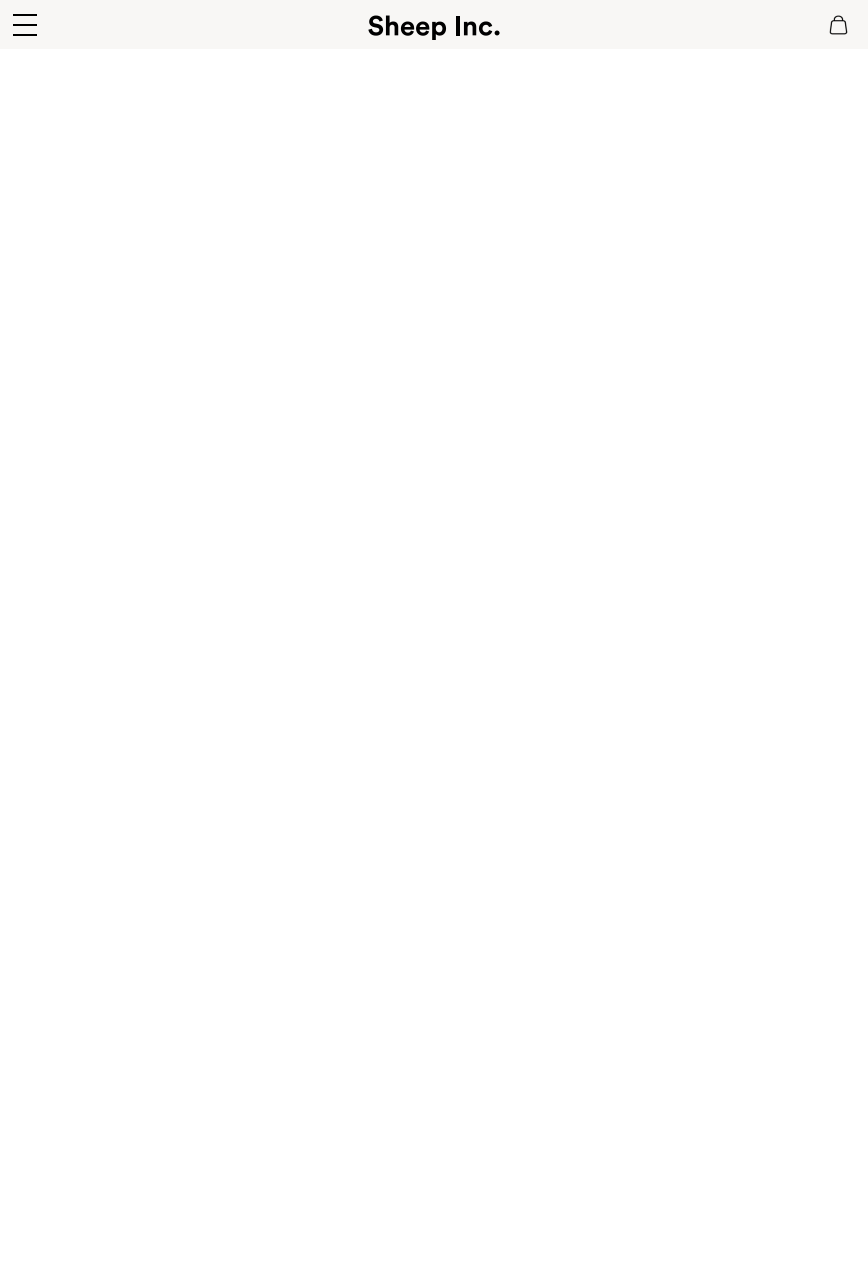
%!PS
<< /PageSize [868 1272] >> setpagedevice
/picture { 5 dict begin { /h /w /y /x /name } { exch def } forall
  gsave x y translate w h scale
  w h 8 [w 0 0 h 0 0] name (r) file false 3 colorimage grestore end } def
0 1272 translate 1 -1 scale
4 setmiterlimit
1 setgray
0 0 868 1272 rectfill
0.973 0.969 0.961 setrgbcolor
0 0 868 49 rectfill
0 setgray
13 14 24 2 rectfill
13 24 24 2 rectfill
13 34 24 2 rectfill
(img1.rgb) 368 15 132 25 picture
(img2.rgb) 829 15 19 20 picture
showpage
